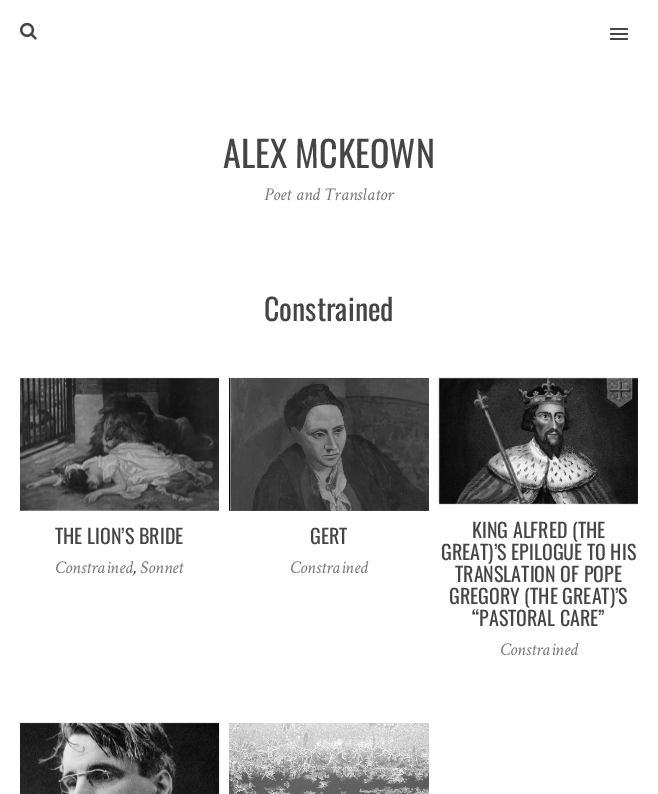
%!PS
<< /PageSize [658 794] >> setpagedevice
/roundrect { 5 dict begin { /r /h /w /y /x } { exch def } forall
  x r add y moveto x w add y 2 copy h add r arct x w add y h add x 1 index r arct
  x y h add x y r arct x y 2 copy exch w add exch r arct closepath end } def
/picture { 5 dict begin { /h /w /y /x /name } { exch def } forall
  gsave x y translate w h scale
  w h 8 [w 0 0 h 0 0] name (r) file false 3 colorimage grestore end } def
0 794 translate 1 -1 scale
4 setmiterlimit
1 setgray
0 0 658 794 rectfill
(img1.rgb) 20 22 17 18 picture
0.271 setgray
610 28 18 2 1 roundrect fill
610 33 18 2 1 roundrect fill
610 38 18 2 1 roundrect fill
/Oswald-Regular [36 0 0 -36 0 0] selectfont
223 168 moveto (ALEX MCKEOWN) show
/CrimsonText-Italic [18 0 0 -18 0 0] selectfont
0.467 setgray
264 200 moveto (Poet and Translator) show
/Oswald-Regular [30 0 0 -30 0 0] selectfont
0.271 setgray
264 321 moveto (Constrained) show
(img2.rgb) 20 377 199 134 picture
/Oswald-Regular [20 0 0 -20 0 0] selectfont
55 544 moveto (THE LION’S BRIDE) show
/CrimsonText-Italic [18 0 0 -18 0 0] selectfont
0.467 setgray
55 573 moveto (Constrained) show
140 573 moveto (Sonnet) show
0.271 setgray
133 573 moveto (,) show
(img3.rgb) 229 377 200 134 picture
/Oswald-Regular [20 0 0 -20 0 0] selectfont
310 544 moveto (GERT) show
/CrimsonText-Italic [18 0 0 -18 0 0] selectfont
0.467 setgray
290 573 moveto (Constrained) show
(img4.rgb) 438 377 200 128 picture
/Oswald-Regular [20 0 0 -20 0 0] selectfont
0.271 setgray
472 538 moveto (KING ALFRED \(THE) show
441 560 moveto (GREAT\)’S EPILOGUE TO HIS) show
455 582 moveto (TRANSLATION OF POPE) show
449 604 moveto (GREGORY \(THE GREAT\)’S) show
472 626 moveto (“PASTORAL CARE”) show
/CrimsonText-Italic [18 0 0 -18 0 0] selectfont
0.467 setgray
500 655 moveto (Constrained) show
(img5.rgb) 20 722 200 72 picture
(img6.rgb) 229 723 200 71 picture
showpage
